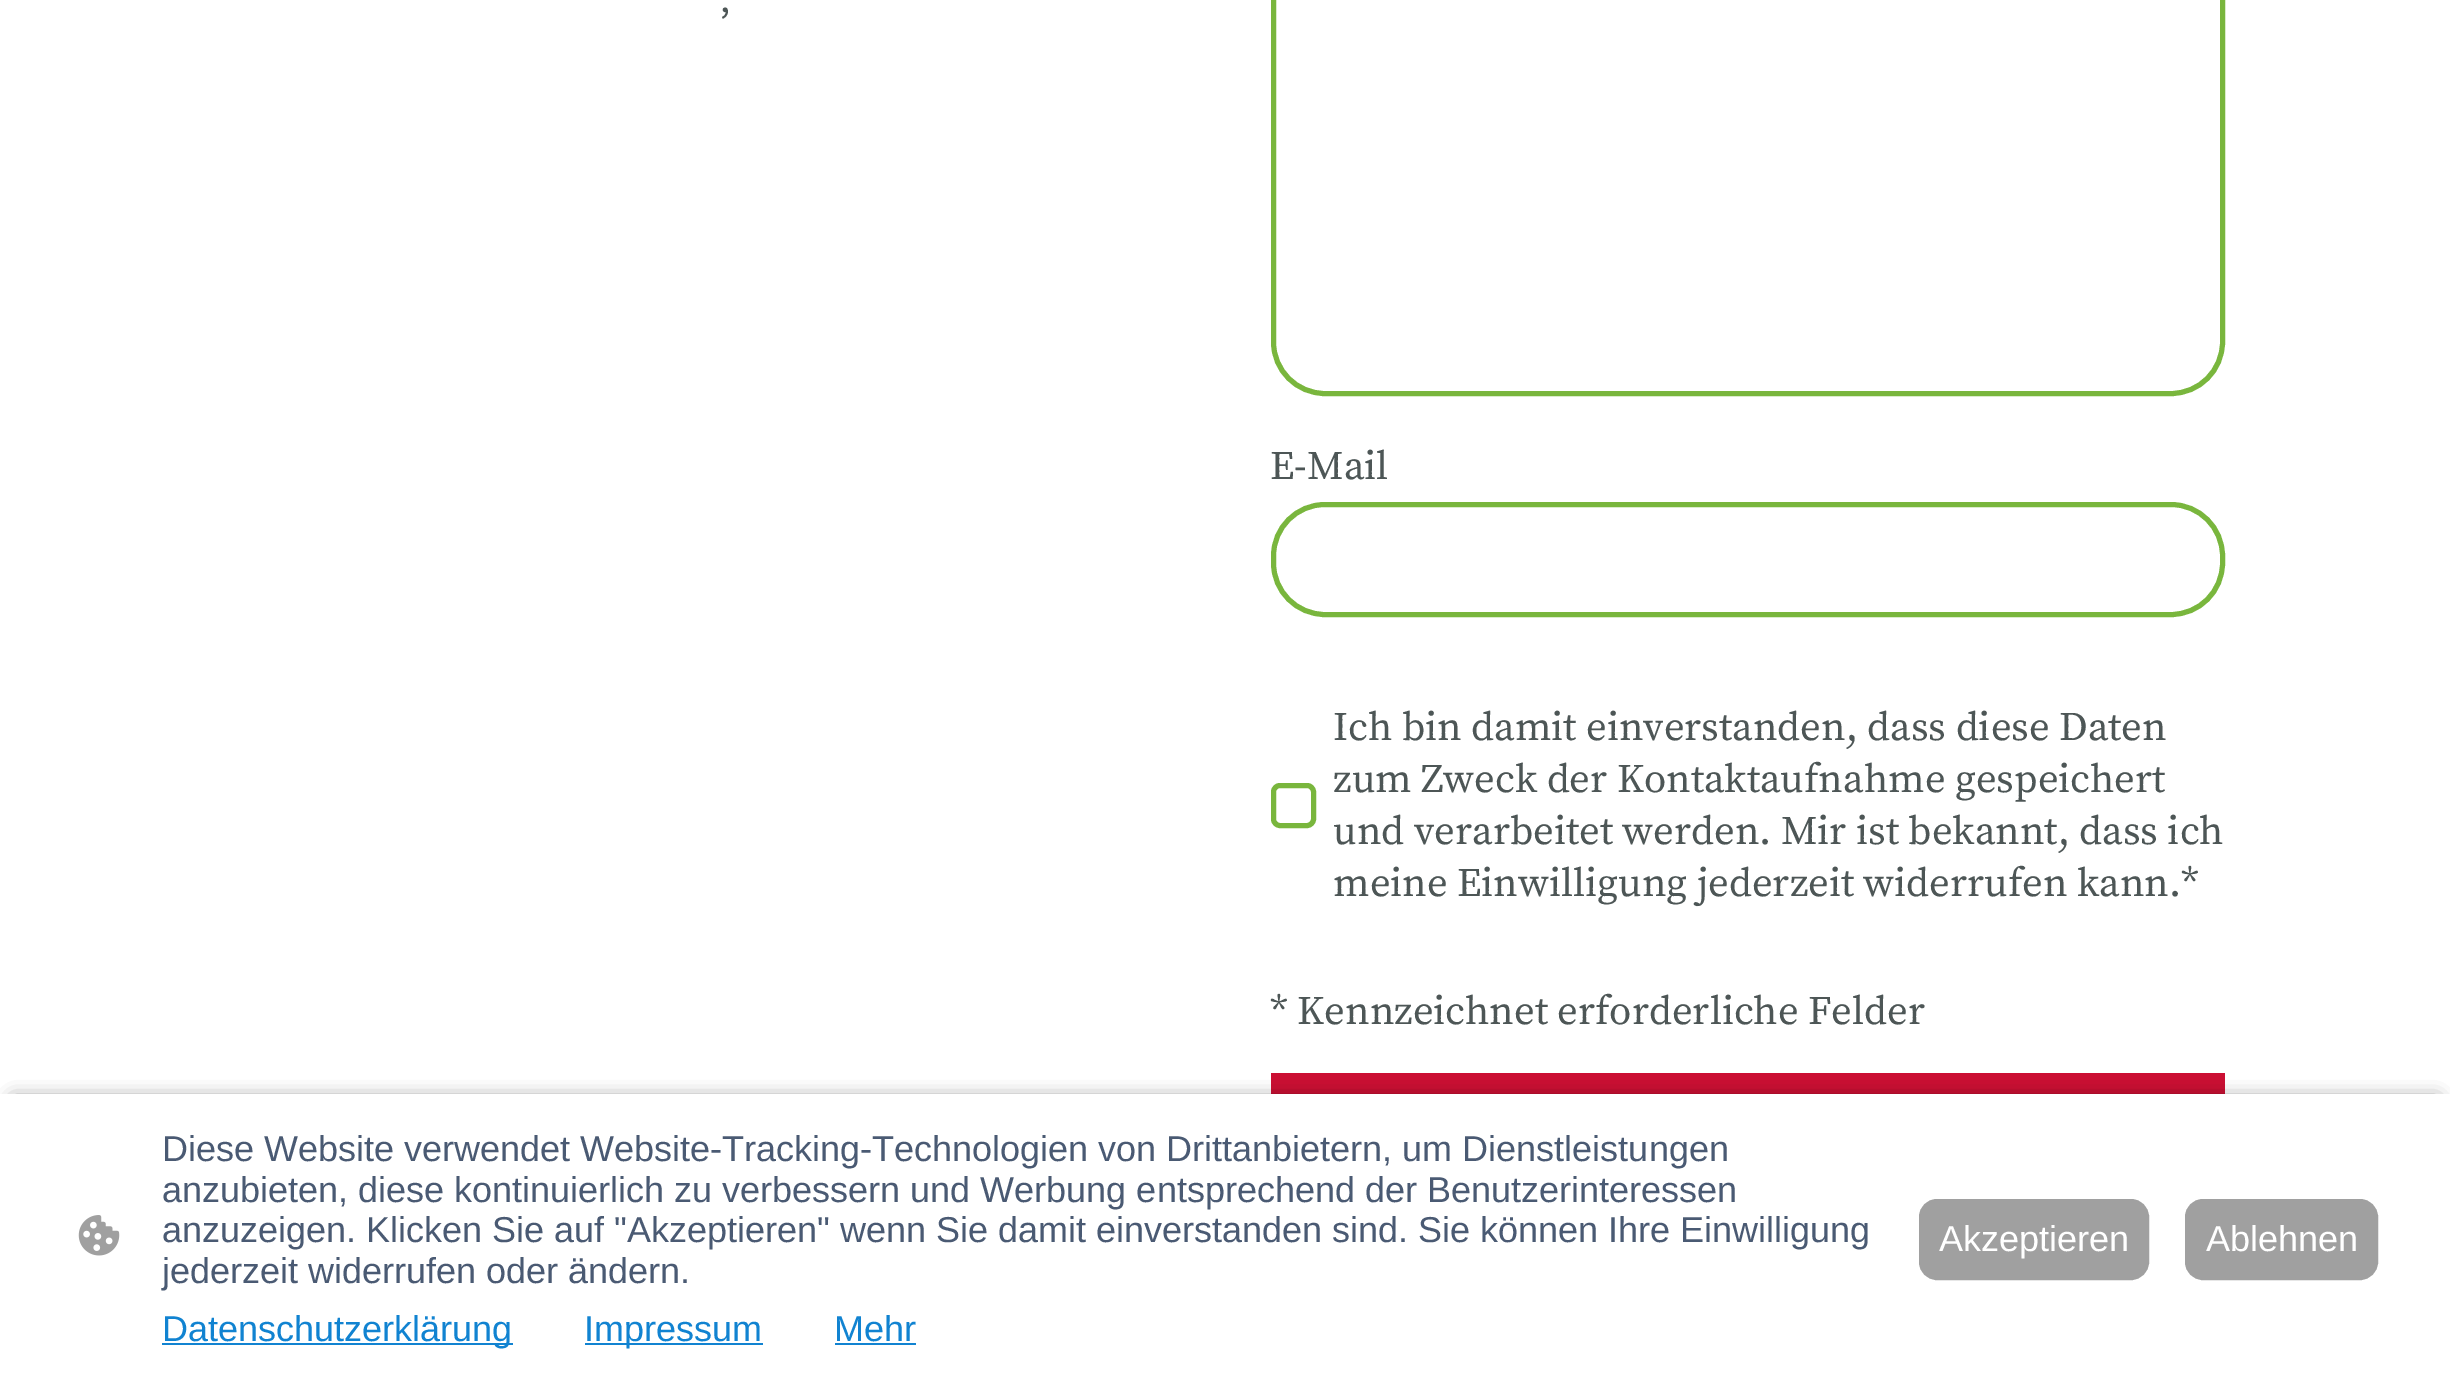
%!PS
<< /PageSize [2450 1384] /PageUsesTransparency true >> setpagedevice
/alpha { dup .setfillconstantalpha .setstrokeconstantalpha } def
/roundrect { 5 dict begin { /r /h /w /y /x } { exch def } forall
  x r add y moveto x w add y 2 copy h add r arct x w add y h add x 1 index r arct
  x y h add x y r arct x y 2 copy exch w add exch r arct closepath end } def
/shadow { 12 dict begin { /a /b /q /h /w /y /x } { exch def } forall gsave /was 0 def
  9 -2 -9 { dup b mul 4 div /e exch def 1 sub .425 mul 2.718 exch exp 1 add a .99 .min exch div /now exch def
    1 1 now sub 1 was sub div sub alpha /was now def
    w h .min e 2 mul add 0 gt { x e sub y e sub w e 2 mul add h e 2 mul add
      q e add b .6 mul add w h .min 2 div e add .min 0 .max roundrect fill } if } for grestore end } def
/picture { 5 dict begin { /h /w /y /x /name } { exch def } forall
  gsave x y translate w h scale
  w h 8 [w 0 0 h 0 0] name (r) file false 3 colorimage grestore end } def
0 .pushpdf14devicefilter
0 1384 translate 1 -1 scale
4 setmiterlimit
1 setgray
0 0 2450 1384 rectfill
/SourceSansPro-Regular [40.5 0 0 -40.5 0 0] selectfont
0.302 0.337 0.337 setrgbcolor
720 12 moveto (,) show
0.475 0.714 0.239 setrgbcolor
5 setlinewidth
1273.5 -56.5 949 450 51.5 roundrect stroke
/SourceSerifPro-Regular [40.5 0 0 -40.5 0 0] selectfont
0.302 0.337 0.337 setrgbcolor
1270 479 moveto (E-Mail) show
0.475 0.714 0.239 setrgbcolor
1273.5 504.5 949 110 51.5 roundrect stroke
1273.5 785.5 40 40 6.5 roundrect stroke
0.302 0.337 0.337 setrgbcolor
1333 740 moveto (Ich bin damit einverstanden, dass diese Daten) show
1333 792 moveto (zum Zweck der Kontaktaufnahme gespeichert) show
1333 844 moveto (und verarbeitet werden. Mir ist bekannt, dass ich) show
1333 896 moveto (meine Einwilligung jederzeit widerrufen kann.*) show
1270 1024 moveto (* Kennzeichnet erforderliche Felder) show
0.796 0.059 0.2 setrgbcolor
1271 1073 954 21 rectfill
0 setgray
14 1100 2423 266 0 9 0.63 shadow
1 setgray
0 1094 2450 290 rectfill
(img1.rgb) 78 1215 42 41 picture
/LiberationSans-Regular [36 0 0 -36 0 0] selectfont
0.29 0.353 0.451 setrgbcolor
162 1161 moveto (Diese Website verwendet Website-Tracking-Technologien von Drittanbietern, um Dienstleistungen) show
162 1202 moveto (anzubieten, diese kontinuierlich zu verbessern und Werbung entsprechend der Benutzerinteressen) show
162 1242 moveto (anzuzeigen. Klicken Sie auf "Akzeptieren" wenn Sie damit einverstanden sind. Sie können Ihre Einwilligung) show
162 1283 moveto (jederzeit widerrufen oder ändern.) show
0.067 0.514 0.82 setrgbcolor
162 1343 351 2 rectfill
162 1341 moveto (Datenschutzerklärung) show
585 1343 178 2 rectfill
584 1341 moveto (Impressum) show
834 1341 moveto (Mehr) show
835 1343 81 2 rectfill
0.627 setgray
1920 1200 228 79 17 roundrect gsave fill grestore
2 setlinewidth
stroke
1 setgray
1939 1251 moveto (Akzeptieren) show
0.627 setgray
2186 1200 191 79 17 roundrect gsave fill grestore
stroke
1 setgray
2206 1251 moveto (Ablehnen) show
.poppdf14devicefilter showpage
